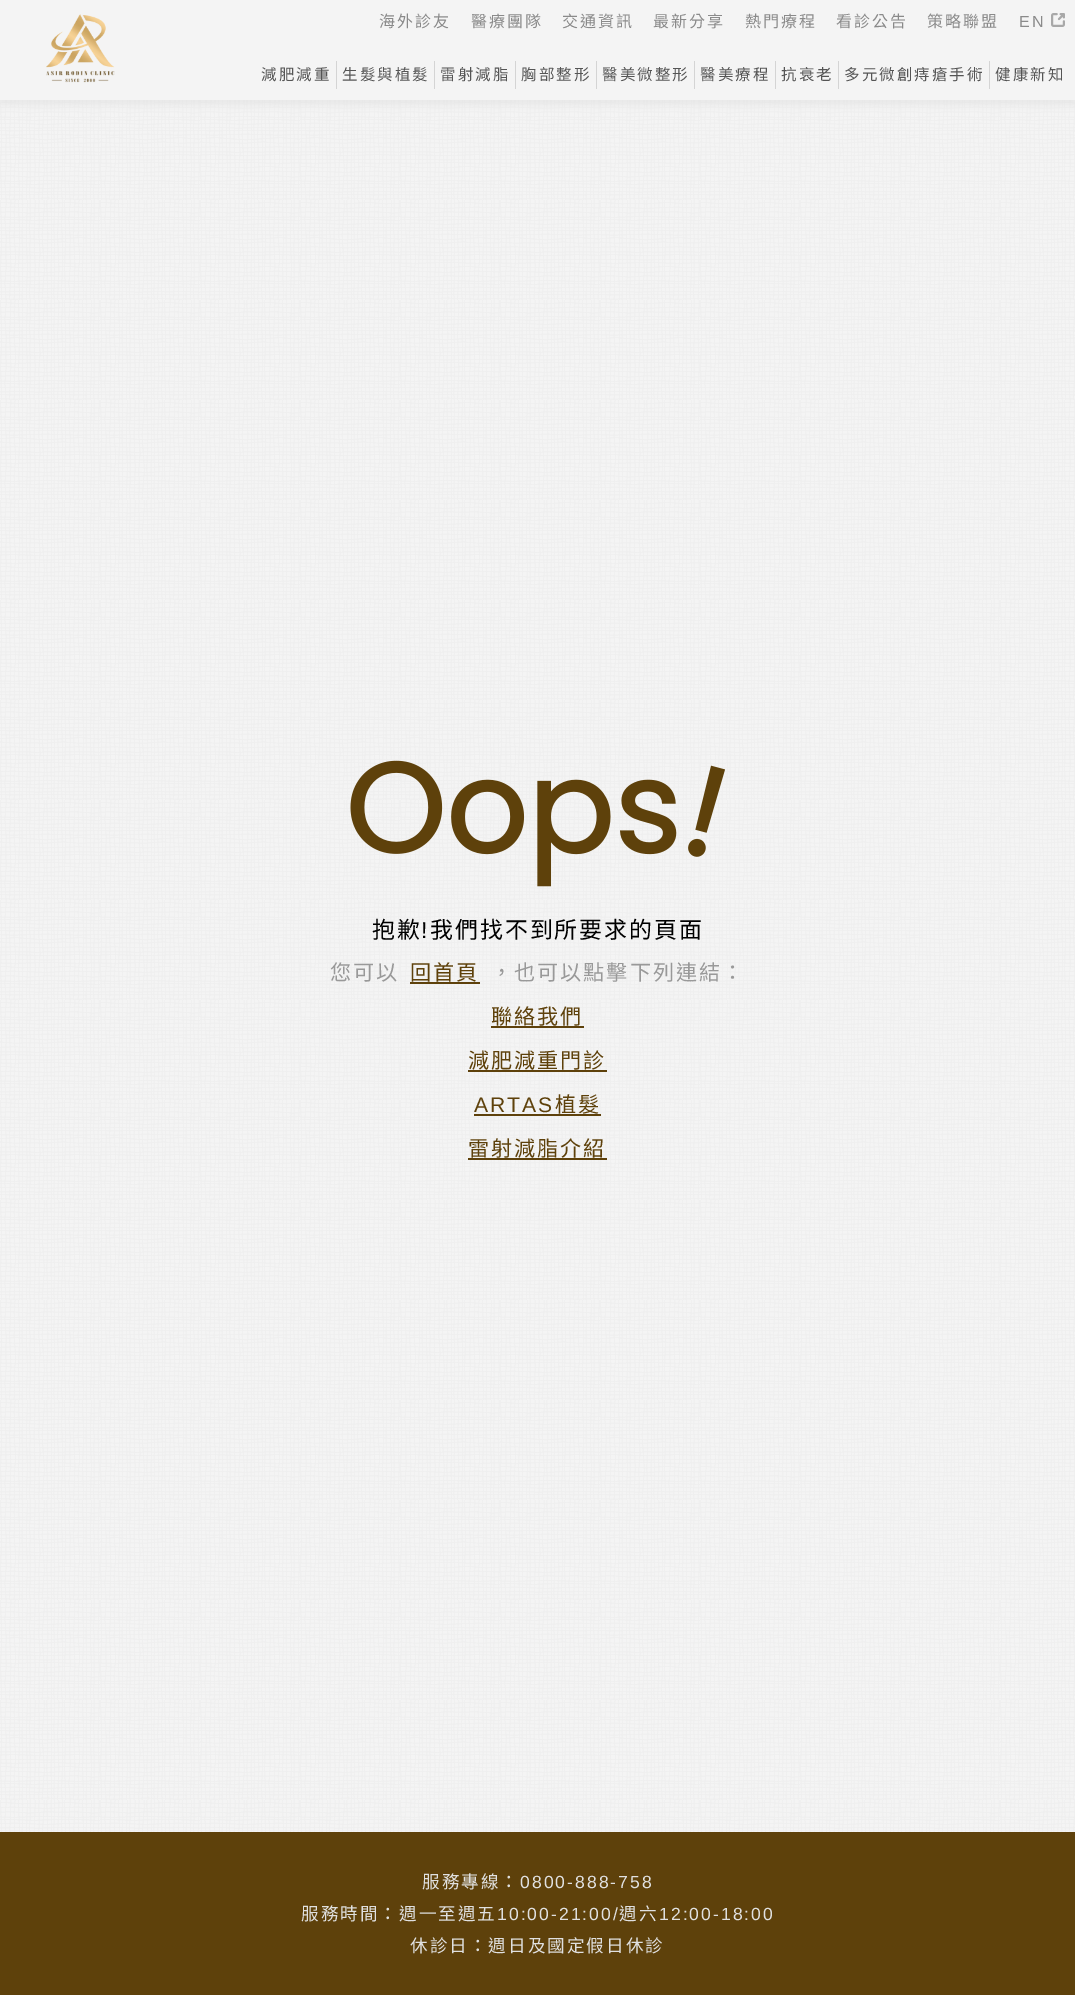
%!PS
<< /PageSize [1075 1995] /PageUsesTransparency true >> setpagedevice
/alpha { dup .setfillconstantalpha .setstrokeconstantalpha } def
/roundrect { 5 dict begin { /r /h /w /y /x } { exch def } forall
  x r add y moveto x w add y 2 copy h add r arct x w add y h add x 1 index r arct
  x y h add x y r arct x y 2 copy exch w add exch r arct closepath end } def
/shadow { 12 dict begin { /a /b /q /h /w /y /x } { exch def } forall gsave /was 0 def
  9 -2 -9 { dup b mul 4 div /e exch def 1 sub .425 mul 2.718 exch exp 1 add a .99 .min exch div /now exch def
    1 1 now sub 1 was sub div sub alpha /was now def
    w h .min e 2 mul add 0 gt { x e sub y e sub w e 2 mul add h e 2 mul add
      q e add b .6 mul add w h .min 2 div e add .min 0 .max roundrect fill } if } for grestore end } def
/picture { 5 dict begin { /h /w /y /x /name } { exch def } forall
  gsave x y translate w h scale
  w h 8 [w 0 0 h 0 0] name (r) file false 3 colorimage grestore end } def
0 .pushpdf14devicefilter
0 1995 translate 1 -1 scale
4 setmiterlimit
1 setgray
0 0 1075 1995 rectfill
(img3.rgb) 0 100 1075 1732 picture
0.847 setgray
0 4 1075 100 0 5 0.5 shadow
0.957 setgray
0 0 1075 100 rectfill
(img1.rgb) 46 14 69 69 picture
/NotoSansCJKTC-Regular [16 0 0 -16 0 0] selectfont
0.541 setgray
379 27 moveto 2 0 (海外診友) ashow
471 27 moveto 2 0 (醫療團隊) ashow
562 27 moveto 2 0 (交通資訊) ashow
653 27 moveto 2 0 (最新分享) ashow
745 27 moveto 2 0 (熱門療程) ashow
836 27 moveto 2 0 (看診公告) ashow
927 27 moveto 2 0 (策略聯盟) ashow
/LiberationSans-Regular [16 0 0 -16 0 0] selectfont
1019 27 moveto 2 0 (EN) ashow
(img2.rgb) 1051 13 14 14 picture
0.831 setgray
336 61 1 28 rectfill
/NotoSansCJKTC-Regular [15.5 0 0 -15.5 0 0] selectfont
0.333 setgray
261 80 moveto 2 0 (減肥減重) ashow
0.831 setgray
434 61 1 28 rectfill
0.333 setgray
342 80 moveto 2 0 (生髮與植髮) ashow
0.831 setgray
515 61 1 28 rectfill
0.333 setgray
440 80 moveto 2 0 (雷射減脂) ashow
0.831 setgray
596 61 1 28 rectfill
0.333 setgray
521 80 moveto 2 0 (胸部整形) ashow
0.831 setgray
694 61 1 28 rectfill
0.333 setgray
602 80 moveto 2 0 (醫美微整形) ashow
0.831 setgray
775 61 1 28 rectfill
0.333 setgray
700 80 moveto 2 0 (醫美療程) ashow
0.831 setgray
838 61 1 28 rectfill
0.333 setgray
781 80 moveto 2 0 (抗衰老) ashow
0.831 setgray
989 61 1 28 rectfill
0.333 setgray
844 80 moveto 2 0 (多元微創痔瘡手術) ashow
995 80 moveto 2 0 (健康新知) ashow
(img4.rgb) 350 760 375 127 picture
/NotoSansCJKTC-Regular [22.9 0 0 -22.9 0 0] selectfont
0 setgray
372 938 moveto 2 0 (抱歉) ashow
/LiberationSans-Regular [22.9 0 0 -22.9 0 0] selectfont
421 938 moveto 2 0 (!) ashow
/NotoSansCJKTC-Regular [22.9 0 0 -22.9 0 0] selectfont
430 938 moveto 2 0 (我們找不到所要求的頁面) ashow
/NotoSansCJKTC-Regular [21.1 0 0 -21.1 0 0] selectfont
0.6 setgray
330 980 moveto 2 0 (您可以) ashow
0.369 0.255 0.043 setrgbcolor
410 980 moveto 2 0 (回首頁) ashow
410 982 70 2 rectfill
0.6 setgray
491 980 moveto 2 0 (，也可以點擊下列連結：) ashow
0.369 0.255 0.043 setrgbcolor
491 1024 moveto 2 0 (聯絡我們) ashow
491 1026 93 2 rectfill
468 1068 moveto 2 0 (減肥減重門診) ashow
468 1070 139 2 rectfill
/LiberationSans-Regular [21.1 0 0 -21.1 0 0] selectfont
474 1112 moveto 2 0 (ARTAS) ashow
474 1114 127 2 rectfill
/NotoSansCJKTC-Regular [21.1 0 0 -21.1 0 0] selectfont
555 1112 moveto 2 0 (植髮) ashow
468 1156 moveto 2 0 (雷射減脂介紹) ashow
468 1158 139 2 rectfill
0 1832 1075 163 rectfill
/NotoSansCJKTC-Regular [17.6 0 0 -17.6 0 0] selectfont
0.878 setgray
422 1888 moveto 2 0 (服務專線：) ashow
/LiberationSans-Regular [17.6 0 0 -17.6 0 0] selectfont
520 1888 moveto 2 0 (0800-888-758) ashow
/NotoSansCJKTC-Regular [17.6 0 0 -17.6 0 0] selectfont
301 1920 moveto 2 0 (服務時間：週一至週五) ashow
/LiberationSans-Regular [17.6 0 0 -17.6 0 0] selectfont
497 1920 moveto 2 0 (10:00-21:00/) ashow
/NotoSansCJKTC-Regular [17.6 0 0 -17.6 0 0] selectfont
619 1920 moveto 2 0 (週六) ashow
/LiberationSans-Regular [17.6 0 0 -17.6 0 0] selectfont
659 1920 moveto 2 0 (12:00-18:00) ashow
/NotoSansCJKTC-Regular [17.6 0 0 -17.6 0 0] selectfont
410 1952 moveto 2 0 (休診日：週日及國定假日休診) ashow
.poppdf14devicefilter showpage
